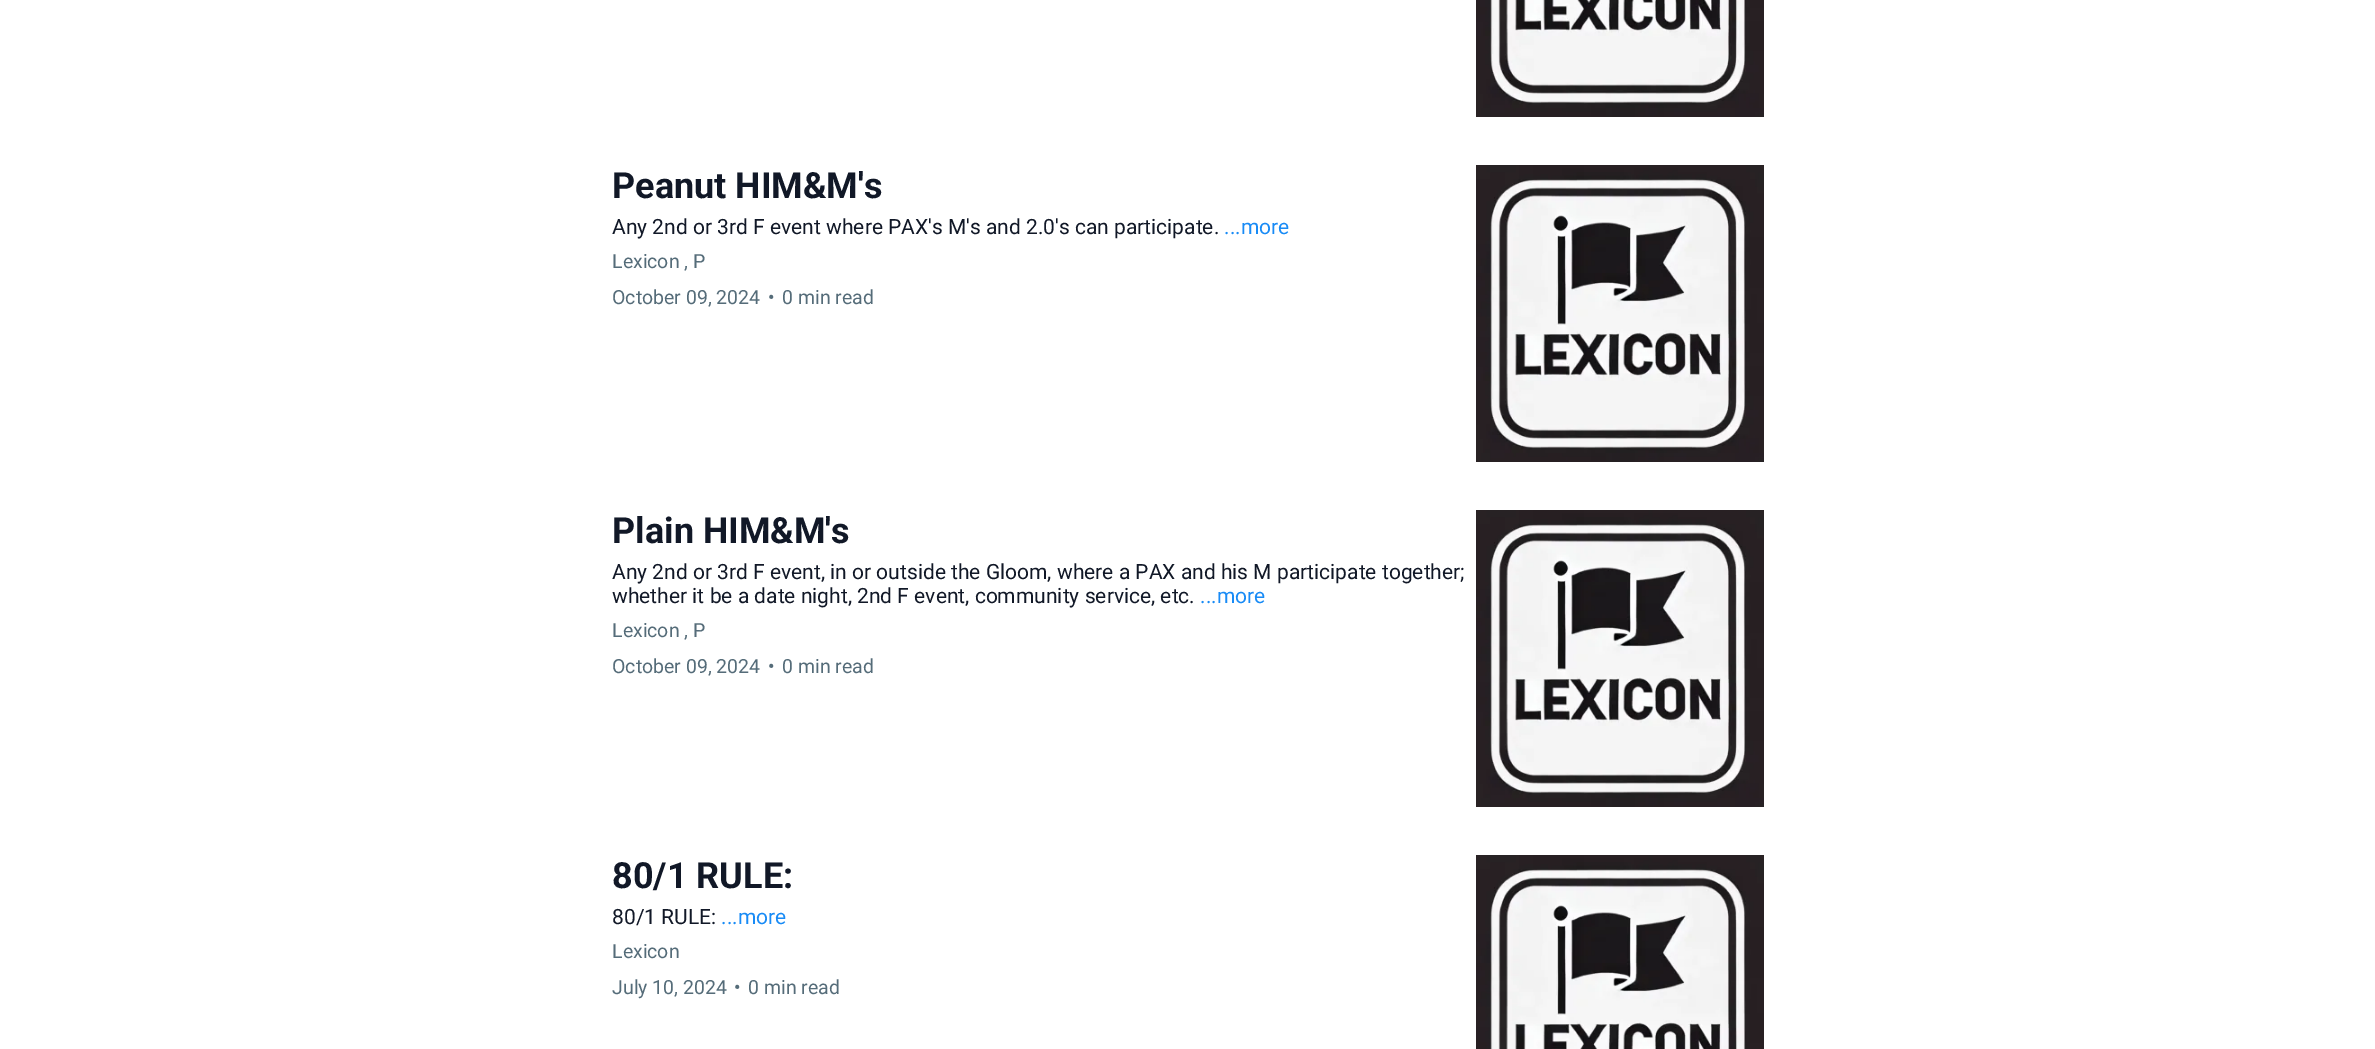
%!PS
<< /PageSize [2375 1049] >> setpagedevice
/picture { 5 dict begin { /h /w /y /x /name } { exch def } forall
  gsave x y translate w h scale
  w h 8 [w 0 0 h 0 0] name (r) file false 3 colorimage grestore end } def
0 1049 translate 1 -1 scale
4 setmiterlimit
1 setgray
0 0 2375 1049 rectfill
(img1.rgb) 1476 0 288 117 picture
/Roboto-Bold [36 0 0 -36 0 0] selectfont
0.067 0.094 0.153 setrgbcolor
612 198 moveto (Peanut HIM&M's) show
/Roboto-Regular [21 0 0 -21 0 0] selectfont
612 234 moveto (Any 2nd or 3rd F event where PAX's M's and 2.0's can participate.) show
0.094 0.545 0.965 setrgbcolor
1224 234 moveto (...more) show
/Roboto-Regular [19.5 0 0 -19.5 0 0] selectfont
0.333 0.424 0.475 setrgbcolor
612 268 moveto (Lexicon ,) show
693 268 moveto (P) show
612 304 moveto (October 09, 2024) show
768 304 moveto (•) show
782 304 moveto (0 min read) show
(img2.rgb) 1476 165 288 297 picture
/Roboto-Bold [36 0 0 -36 0 0] selectfont
0.067 0.094 0.153 setrgbcolor
612 543 moveto (Plain HIM&M's) show
/Roboto-Regular [21 0 0 -21 0 0] selectfont
612 579 moveto (Any 2nd or 3rd F event, in or outside the Gloom, where a PAX and his M participate together;) show
612 603 moveto (whether it be a date night, 2nd F event, community service, etc.) show
0.094 0.545 0.965 setrgbcolor
1200 603 moveto (...more) show
/Roboto-Regular [19.5 0 0 -19.5 0 0] selectfont
0.333 0.424 0.475 setrgbcolor
612 637 moveto (Lexicon ,) show
693 637 moveto (P) show
612 673 moveto (October 09, 2024) show
768 673 moveto (•) show
782 673 moveto (0 min read) show
(img3.rgb) 1476 510 288 297 picture
/Roboto-Bold [36 0 0 -36 0 0] selectfont
0.067 0.094 0.153 setrgbcolor
612 888 moveto (80/1 RULE:) show
/Roboto-Regular [21 0 0 -21 0 0] selectfont
612 924 moveto (80/1 RULE:) show
0.094 0.545 0.965 setrgbcolor
721 924 moveto (...more) show
/Roboto-Regular [19.5 0 0 -19.5 0 0] selectfont
0.333 0.424 0.475 setrgbcolor
612 958 moveto (Lexicon) show
612 994 moveto (July 10, 2024) show
734 994 moveto (•) show
748 994 moveto (0 min read) show
(img4.rgb) 1476 855 288 194 picture
showpage
